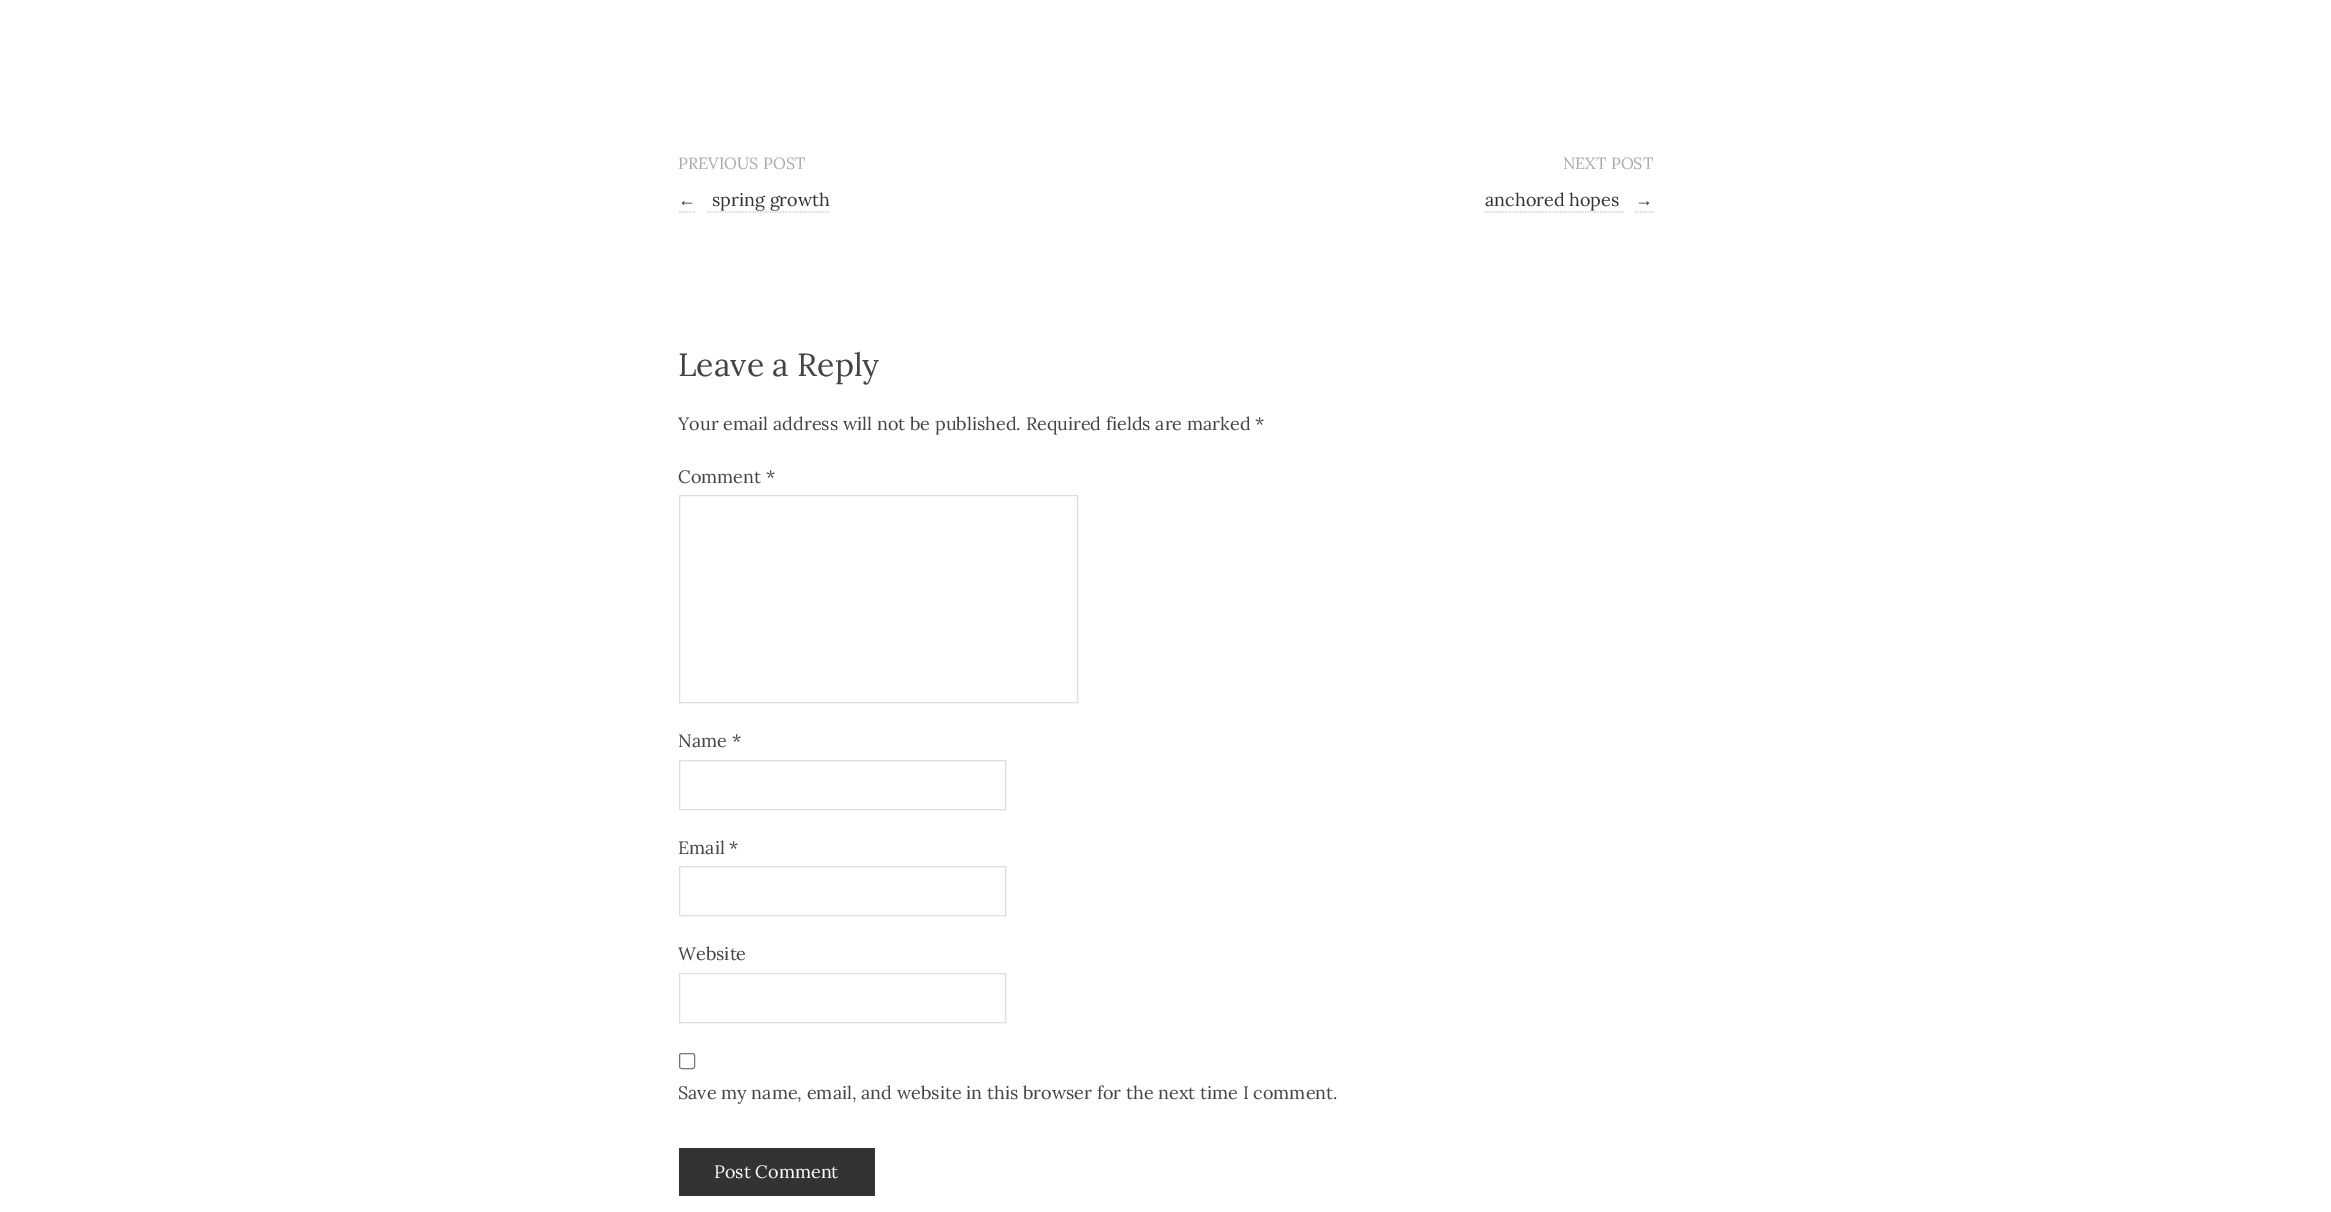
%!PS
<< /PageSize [2331 1212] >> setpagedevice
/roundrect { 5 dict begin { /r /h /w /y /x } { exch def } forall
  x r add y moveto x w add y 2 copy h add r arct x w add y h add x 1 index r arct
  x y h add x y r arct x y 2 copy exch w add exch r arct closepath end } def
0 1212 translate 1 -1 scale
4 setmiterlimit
1 setgray
0 0 2331 1212 rectfill
/Lora-Regular [16.25 0 0 -16.25 0 0] selectfont
0.667 setgray
678 169 moveto (PREVIOUS POST) show
/LiberationSerif-Regular [18 0 0 -18 0 0] selectfont
0.2 setgray
678 206 moveto (←) show
0.8 setgray
1.2 setlinewidth
[1.25 1.25] 0 setdash
newpath 679 212 moveto 696 212 lineto stroke
/Lora-Regular [18 0 0 -18 0 0] selectfont
0.2 setgray
712 206 moveto (spring growth) show
0.8 setgray
newpath 707.5 212 moveto 830 212 lineto stroke
/Lora-Regular [16.25 0 0 -16.25 0 0] selectfont
0.667 setgray
1563 169 moveto (NEXT POST) show
/Lora-Regular [18 0 0 -18 0 0] selectfont
0.2 setgray
1485 206 moveto (anchored hopes) show
0.8 setgray
newpath 1485 212 moveto 1624 212 lineto stroke
/LiberationSerif-Regular [18 0 0 -18 0 0] selectfont
0.2 setgray
1635 206 moveto (→) show
0.8 setgray
newpath 1635 212 moveto 1654 212 lineto stroke
/Lora-Regular [32 0 0 -32 0 0] selectfont
0.267 setgray
678 376 moveto (Leave a Reply) show
/Lora-Regular [18 0 0 -18 0 0] selectfont
678 430 moveto (Your email address will not be published. Required fields are marked *) show
678 483 moveto (Comment *) show
0.867 setgray
1 setlinewidth
[] 0 setdash
679.5 495.5 398 207 rectstroke
0.267 setgray
678 747 moveto (Name *) show
0.867 setgray
679.5 760.5 326 49 rectstroke
0.267 setgray
678 854 moveto (Email *) show
0.867 setgray
679.5 866.5 326 49 rectstroke
0.267 setgray
678 960 moveto (Website) show
0.867 setgray
679.5 973.5 326 49 rectstroke
0.463 setgray
679.5 1053.5 15 15 2 roundrect stroke
0.267 setgray
678 1099 moveto (Save my name, email, and website in this browser for the next time I comment.) show
0.2 setgray
679 1148 196 48 rectfill
1 setgray
714 1178 moveto (Post Comment) show
showpage
